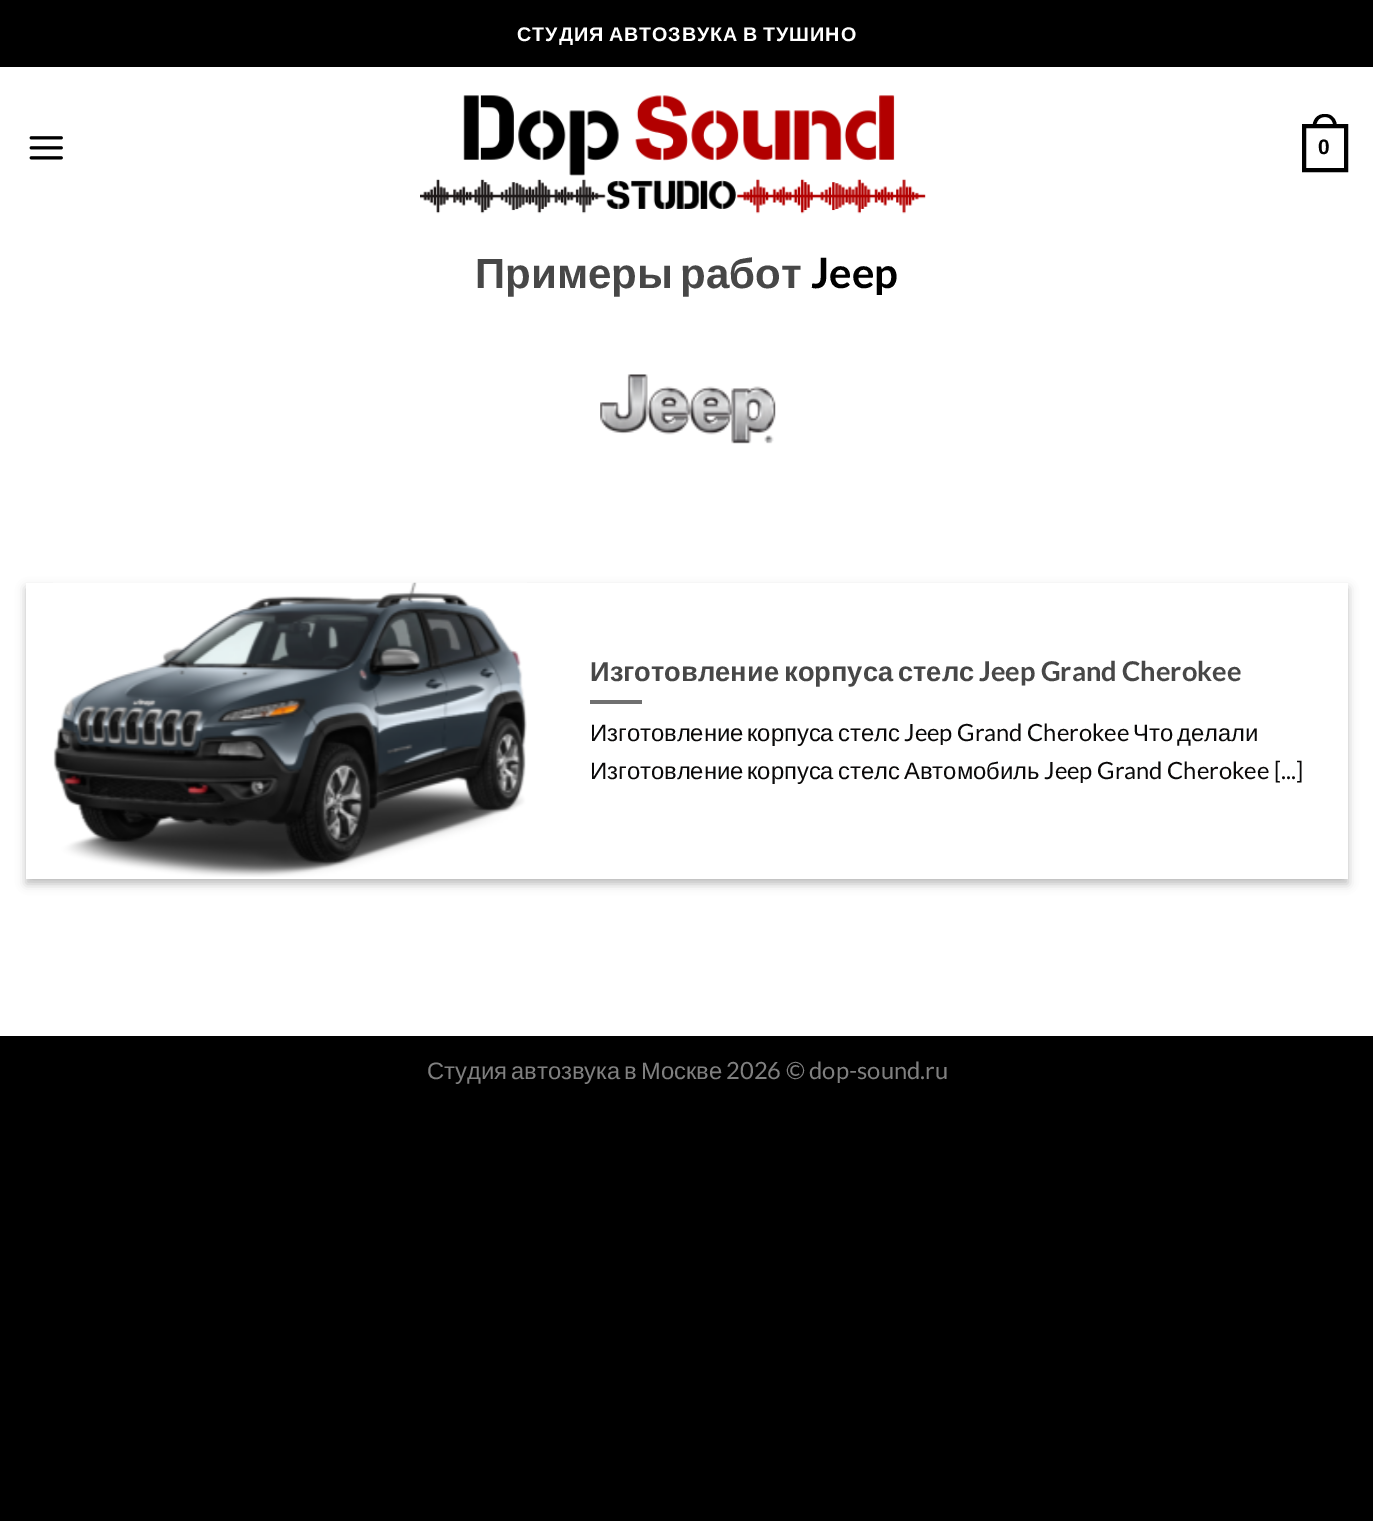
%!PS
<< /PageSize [1373 1521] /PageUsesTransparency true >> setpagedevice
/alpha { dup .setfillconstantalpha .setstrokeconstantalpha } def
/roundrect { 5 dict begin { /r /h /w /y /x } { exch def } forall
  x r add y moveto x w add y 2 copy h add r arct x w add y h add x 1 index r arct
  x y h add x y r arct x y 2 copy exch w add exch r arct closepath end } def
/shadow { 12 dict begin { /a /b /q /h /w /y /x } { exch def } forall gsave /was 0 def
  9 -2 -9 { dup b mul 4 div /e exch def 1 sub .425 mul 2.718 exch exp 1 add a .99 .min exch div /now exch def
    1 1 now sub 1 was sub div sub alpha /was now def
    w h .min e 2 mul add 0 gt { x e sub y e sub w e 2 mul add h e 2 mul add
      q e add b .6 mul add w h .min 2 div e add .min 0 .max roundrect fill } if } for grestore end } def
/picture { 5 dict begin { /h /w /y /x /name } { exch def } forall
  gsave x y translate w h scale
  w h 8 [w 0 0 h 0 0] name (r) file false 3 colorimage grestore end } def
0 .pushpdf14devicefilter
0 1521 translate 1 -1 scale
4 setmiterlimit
0 setgray
0 0 1373 1521 rectfill
1 setgray
0 67 1373 969 rectfill
/LiberationSans-Bold [19.75 0 0 -19.75 0 0] selectfont
517 41 moveto -2 0 32 1 0 (СТУДИЯ АВТОЗВУКА В ТУШИНО) awidthshow
(img1.rgb) 29 136 34 24 picture
(img2.rgb) 420 95 506 119 picture
0 setgray
4 setlinewidth
1304 126 42 44 rectstroke
newpath 1325 114 moveto 1333 114 1337 120 1337 128 curveto 1312.5 128 lineto 1312.5 120 1316.5 114 1325 114 curveto closepath 1325 117 moveto 1331 117 1333.5 122 1333.5 128 curveto 1316 128 lineto 1316 122 1318.5 117 1325 117 curveto closepath eofill
/LiberationSans-Bold [21 0 0 -21 0 0] selectfont
1318 154 moveto (0) show
/LiberationSans-Bold [42 0 0 -42 0 0] selectfont
0.278 setgray
475 288 moveto -4 0 32 (Примеры работ) widthshow
/Lato-Bold [42 0 0 -42 0 0] selectfont
0 setgray
811 288 moveto (Jeep) show
(img3.rgb) 600 374 176 70 picture
26 588 1322 296 0 5 0.23 shadow
33 595 1308 282 0 5 0.16 shadow
1 setgray
26 583 1322 296 rectfill
(img4.rgb) 53 582 474 295 picture
/LiberationSans-Bold [27.25 0 0 -27.25 0 0] selectfont
0.278 setgray
590 681 moveto (Изготовление) show
784 681 moveto (корпуса) show
898 681 moveto (стелс) show
/Lato-Bold [27.25 0 0 -27.25 0 0] selectfont
979 681 moveto (Jeep Grand Cherokee) show
0.439 setgray
590 700 52 4 rectfill
/LiberationSans-Regular [23.75 0 0 -23.75 0 0] selectfont
0.039 0.035 0.035 setrgbcolor
590 741 moveto (Изготовление) show
747 741 moveto (корпуса) show
838 741 moveto (стелс) show
/Lato-Regular [23.75 0 0 -23.75 0 0] selectfont
904 741 moveto (Jeep Grand Cherokee) show
/LiberationSans-Regular [23.75 0 0 -23.75 0 0] selectfont
1133 741 moveto (Что) show
1177 741 moveto (делали) show
590 779 moveto (Изготовление) show
747 779 moveto (корпуса) show
838 779 moveto (стелс) show
904 779 moveto (Автомобиль) show
/Lato-Regular [23.75 0 0 -23.75 0 0] selectfont
1044 779 moveto (Jeep Grand Cherokee [...]) show
/LiberationSans-Regular [23.75 0 0 -23.75 0 0] selectfont
0.502 setgray
427 1079 moveto (Студия) show
511 1079 moveto (автозвука) show
624 1079 moveto (в) show
641 1079 moveto (Москве) show
/Lato-Regular [23.75 0 0 -23.75 0 0] selectfont
726 1079 moveto (2026 © dop-sound.ru) show
.poppdf14devicefilter showpage
